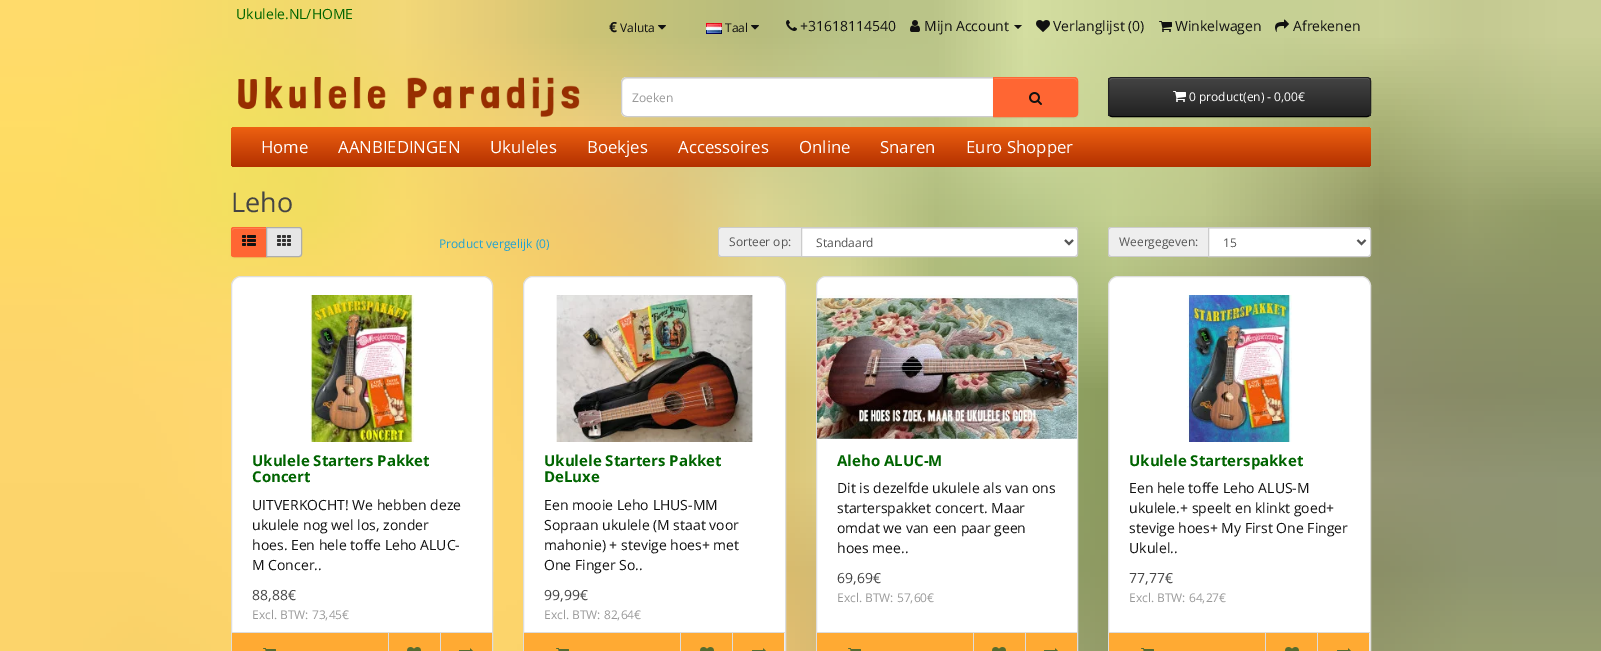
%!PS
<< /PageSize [1601 651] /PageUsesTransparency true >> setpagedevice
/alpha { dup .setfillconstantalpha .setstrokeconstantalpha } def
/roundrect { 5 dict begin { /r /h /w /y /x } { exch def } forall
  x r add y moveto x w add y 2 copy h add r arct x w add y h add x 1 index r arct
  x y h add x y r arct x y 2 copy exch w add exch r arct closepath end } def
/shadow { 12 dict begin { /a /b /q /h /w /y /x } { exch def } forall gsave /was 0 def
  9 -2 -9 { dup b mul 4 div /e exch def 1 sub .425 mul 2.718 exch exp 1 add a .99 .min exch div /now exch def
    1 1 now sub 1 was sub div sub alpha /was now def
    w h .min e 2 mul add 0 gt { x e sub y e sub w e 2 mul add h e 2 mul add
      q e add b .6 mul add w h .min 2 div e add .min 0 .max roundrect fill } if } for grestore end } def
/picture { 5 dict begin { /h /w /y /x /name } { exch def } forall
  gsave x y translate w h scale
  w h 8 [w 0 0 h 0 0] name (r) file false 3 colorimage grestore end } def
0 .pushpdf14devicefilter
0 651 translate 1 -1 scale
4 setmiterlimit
1 setgray
0 0 1601 651 rectfill
(img1.rgb) 0 0 1601 651 picture
/OpenSans-Regular [14 0 0 -14 0 0] selectfont
0 0.392 0 setrgbcolor
236 19 moveto (Ukulele.NL/HOME) show
/OpenSans-Bold [14 0 0 -14 0 0] selectfont
0.067 setgray
609 32 moveto (€) show
/OpenSans-Regular [12 0 0 -12 0 0] selectfont
620 32 moveto (Valuta) show
(img2.rgb) 658 25 8 5 picture
(img3.rgb) 706 23 16 11 picture
725 32 moveto (Taal) show
(img4.rgb) 751 25 8 5 picture
(img5.rgb) 786 20 11 11 picture
/OpenSans-Regular [14 0 0 -14 0 0] selectfont
800 31 moveto (+31618114540) show
(img6.rgb) 910 20 10 12 picture
924 31 moveto (Mijn Account) show
newpath 1014 25 moveto 1022 25 lineto 1018 29 lineto closepath fill
(img7.rgb) 1036 20 14 12 picture
1053 31 moveto (Verlanglijst \(0\)) show
(img8.rgb) 1159 21 13 11 picture
1175 31 moveto (Winkelwagen) show
(img9.rgb) 1275 19 14 13 picture
1293 31 moveto (Afrekenen) show
(img10.rgb) 238 77 342 40 picture
1 setgray
newpath 627 77 moveto 994 77 lineto 994 117 lineto 627 117 lineto 623.5 117 621 114.5 621 111 curveto 621 83 lineto 621 79.5 623.5 77 627 77 curveto closepath fill
0.925 setgray
newpath 627 79 moveto 993 79 lineto 993 78 lineto 627 78 lineto 624 78 622 80 622 83 curveto 622 84 lineto 622 81 624 79 627 79 curveto closepath fill
0.8 setgray
newpath 627 77.5 moveto 993.5 77.5 lineto 993.5 116.5 lineto 627 116.5 lineto 624 116.5 621.5 114 621.5 111 curveto 621.5 83 lineto 621.5 80 624 77.5 627 77.5 curveto closepath stroke
/OpenSans-Regular [12 0 0 -12 0 0] selectfont
0.6 setgray
632 102 moveto (Zoeken) show
0 setgray
993 78 85 40 4 1 0.05 shadow
1 0.4 0.2 setrgbcolor
newpath 993 77 moveto 1074 77 lineto 1076 77 1078 79 1078 81 curveto 1078 113 lineto 1078 115 1076 117 1074 117 curveto 993 117 lineto closepath fill
1 0.522 0.361 setrgbcolor
newpath 994 79 moveto 1074 79 lineto 1076 79 1077 80 1077 82 curveto 1077 81 lineto 1077 79 1076 78 1074 78 curveto 994 78 lineto closepath fill
1 0.4 0.2 setrgbcolor
newpath 993.5 77.5 moveto 1074 77.5 lineto 1076 77.5 1077.5 79 1077.5 81 curveto 1077.5 113 lineto 1077.5 115 1076 116.5 1074 116.5 curveto 993.5 116.5 lineto closepath stroke
(img11.rgb) 1029 92 13 13 picture
0 setgray
1108 78 263 40 4 1 0.05 shadow
gsave
1108 77 263 40 4 roundrect clip newpath
gsave newpath 1108 78 moveto 1371 78 lineto 1371 116 lineto 1108 116 lineto closepath clip newpath
<< /ShadingType 2 /ColorSpace /DeviceRGB /Coords [1240 78 1240 116] /Extend [true true] /Function << /FunctionType 2 /Domain [0 1] /C0 [0.267 0.267 0.267] /C1 [0.133 0.133 0.133] /N 1 >> >> shfill grestore
grestore
0.412 setgray
newpath 1112 79 moveto 1368 79 lineto 1370 80 lineto 1370 82 lineto 1370 81 lineto 1370 79 1369 78 1367 78 curveto 1112 78 lineto 1110 78 1109 79 1109 81 curveto 1109 82 lineto 1109 80 1110 79 1112 79 curveto closepath fill
0 setgray
newpath 1369.5 115.5 moveto 1369 116 1368 116.5 1367 116.5 curveto 1112 116.5 lineto 1111 116.5 1110 116 1109.5 115.5 curveto stroke
0.133 setgray
newpath 1109.5 115.5 moveto 1109 115 1108.5 114 1108.5 113 curveto 1108.5 81 lineto 1108.5 80 1109 79 1109.5 78.5 curveto 1110 78 1111 77.5 1112 77.5 curveto 1367 77.5 lineto 1368 77.5 1369 78 1369.5 78.5 curveto 1370 79 1370.5 80 1370.5 81 curveto 1370.5 113 lineto 1370.5 114 1370 115 1369.5 115.5 curveto stroke
(img12.rgb) 1173 91 13 11 picture
1 setgray
1189 101 moveto (0 product\(en\) - 0,00€) show
gsave 231 127 1140 40 4 roundrect clip newpath
<< /ShadingType 2 /ColorSpace /DeviceRGB /Coords [801 127 801 167] /Extend [true true] /Function << /FunctionType 2 /Domain [0 1] /C0 [0.933 0.38 0.067] /C1 [0.702 0.188 0] /N 1 >> >> shfill grestore
/OpenSans-Regular [16.75 0 0 -16.75 0 0] selectfont
261 153 moveto (Home) show
338 153 moveto (AANBIEDINGEN) show
490 153 moveto (Ukuleles) show
587 153 moveto (Boekjes) show
678 153 moveto (Accessoires) show
799 153 moveto (Online) show
880 153 moveto (Snaren) show
966 153 moveto (Euro Shopper) show
/OpenSans-Regular [27 0 0 -27 0 0] selectfont
0.267 setgray
231 212 moveto (Leho) show
0 setgray
231 228 36 30 3 1 0.05 shadow
1 0.4 0.2 setrgbcolor
newpath 234 227 moveto 267 227 lineto 267 257 lineto 234 257 lineto 232.5 257 231 255.5 231 254 curveto 231 230 lineto 231 228.5 232.5 227 234 227 curveto closepath fill
1 0.522 0.361 setrgbcolor
newpath 234 229 moveto 266 229 lineto 266 228 lineto 234 228 lineto 233 228 232 229 232 230 curveto 232 231 lineto 232 230 233 229 234 229 curveto closepath fill
1 0.4 0.2 setrgbcolor
newpath 234 227.5 moveto 266.5 227.5 lineto 266.5 256.5 lineto 234 256.5 lineto 232.5 256.5 231.5 255.5 231.5 254 curveto 231.5 230 lineto 231.5 228.5 232.5 227.5 234 227.5 curveto closepath stroke
(img13.rgb) 242 235 14 11 picture
0.902 setgray
newpath 266.5 227.5 moveto 299 227.5 lineto 300.5 227.5 301.5 228.5 301.5 230 curveto 301.5 254 lineto 301.5 255.5 300.5 256.5 299 256.5 curveto 266.5 256.5 lineto closepath gsave fill grestore
0.678 setgray
stroke
(img14.rgb) 277 235 14 11 picture
/OpenSans-Regular [12 0 0 -12 0 0] selectfont
0.137 0.631 0.82 setrgbcolor
439 248 moveto (Product vergelijk \(0\)) show
0.933 setgray
newpath 721 227 moveto 801 227 lineto 801 257 lineto 721 257 lineto 719.5 257 718 255.5 718 254 curveto 718 230 lineto 718 228.5 719.5 227 721 227 curveto closepath fill
0.8 setgray
newpath 721 227 moveto 801 227 lineto 801 257 lineto 721 257 lineto 719 257 718 256 718 254 curveto 718 230 lineto 718 228 719 227 721 227 curveto closepath 721 228 moveto 801 228 lineto 801 256 lineto 721 256 lineto 720 256 719 255 719 254 curveto 719 230 lineto 719 229 720 228 721 228 curveto closepath eofill
0.333 setgray
729 246 moveto (Sorteer op:) show
1 setgray
newpath 801 227 moveto 1075 227 lineto 1076.5 227 1078 228.5 1078 230 curveto 1078 254 lineto 1078 255.5 1076.5 257 1075 257 curveto 801 257 lineto closepath fill
0.925 setgray
newpath 802 229 moveto 1075 229 lineto 1076 229 1077 230 1077 231 curveto 1077 230 1077 228 1075 228 curveto 802 228 lineto closepath fill
0.8 setgray
newpath 801.5 227.5 moveto 1075 227.5 lineto 1076.5 227.5 1077.5 228.5 1077.5 230 curveto 1077.5 254 lineto 1077.5 255.5 1076.5 256.5 1075 256.5 curveto 801.5 256.5 lineto closepath stroke
0.333 setgray
2 setlinewidth
newpath 1065 240 moveto 1069 244 lineto 1073 240 lineto stroke
816 247 moveto (Standaard) show
0.933 setgray
newpath 1111 227 moveto 1208 227 lineto 1208 257 lineto 1111 257 lineto 1109.5 257 1108 255.5 1108 254 curveto 1108 230 lineto 1108 228.5 1109.5 227 1111 227 curveto closepath fill
0.8 setgray
newpath 1111 227 moveto 1208 227 lineto 1208 257 lineto 1111 257 lineto 1109 257 1108 256 1108 254 curveto 1108 230 lineto 1108 228 1109 227 1111 227 curveto closepath 1111 228 moveto 1208 228 lineto 1208 256 lineto 1111 256 lineto 1110 256 1109 255 1109 254 curveto 1109 230 lineto 1109 229 1110 228 1111 228 curveto closepath eofill
0.333 setgray
1119 246 moveto (Weergegeven:) show
1 setgray
newpath 1208 227 moveto 1368 227 lineto 1369.5 227 1371 228.5 1371 230 curveto 1371 254 lineto 1371 255.5 1369.5 257 1368 257 curveto 1208 257 lineto closepath fill
0.925 setgray
newpath 1209 229 moveto 1368 229 lineto 1369 229 1370 230 1370 231 curveto 1370 230 1370 228 1368 228 curveto 1209 228 lineto closepath fill
0.8 setgray
1 setlinewidth
newpath 1208.5 227.5 moveto 1368 227.5 lineto 1369.5 227.5 1370.5 228.5 1370.5 230 curveto 1370.5 254 lineto 1370.5 255.5 1369.5 256.5 1368 256.5 curveto 1208.5 256.5 lineto closepath stroke
0.333 setgray
2 setlinewidth
newpath 1357.5 240 moveto 1361.5 244 lineto 1365.5 240 lineto stroke
1223 247 moveto (15) show
1 setgray
231.5 276.5 261 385 9.5 roundrect gsave fill grestore
0.867 setgray
1 setlinewidth
stroke
(img15.rgb) 310 295 104 147 picture
/OpenSans-Bold [15 0 0 -15 0 0] selectfont
0 0.392 0 setrgbcolor
252 466 moveto (Ukulele Starters Pakket) show
252 482 moveto (Concert) show
/OpenSans-Regular [14 0 0 -14 0 0] selectfont
0.067 setgray
252 510 moveto (UITVERKOCHT! We hebben deze) show
252 530 moveto (ukulele nog wel los, zonder) show
252 550 moveto (hoes. Een hele toffe Leho ALUC-) show
252 570 moveto (M Concer..) show
0.267 setgray
252 600 moveto (88,88€) show
/OpenSans-Regular [12 0 0 -12 0 0] selectfont
0.6 setgray
252 619 moveto (Excl. BTW: 73,45€) show
0.867 setgray
232 632 260 1 rectfill
1 0.667 0.2 setrgbcolor
232 633 156 18 rectfill
(img16.rgb) 263 648 13 3 picture
389 633 51 18 rectfill
0.867 setgray
388 633 1 18 rectfill
(img17.rgb) 407 647 14 4 picture
1 0.667 0.2 setrgbcolor
441 633 51 18 rectfill
0.867 setgray
440 633 1 18 rectfill
(img18.rgb) 459 648 14 3 picture
1 setgray
523.5 276.5 262 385 9.5 roundrect gsave fill grestore
0.867 setgray
stroke
(img19.rgb) 556 295 197 147 picture
/OpenSans-Bold [15 0 0 -15 0 0] selectfont
0 0.392 0 setrgbcolor
544 466 moveto (Ukulele Starters Pakket) show
544 482 moveto (DeLuxe) show
/OpenSans-Regular [14 0 0 -14 0 0] selectfont
0.067 setgray
544 510 moveto (Een mooie Leho LHUS-MM) show
544 530 moveto (Sopraan ukulele \(M staat voor) show
544 550 moveto (mahonie\) + stevige hoes+ met) show
544 570 moveto (One Finger So..) show
0.267 setgray
544 600 moveto (99,99€) show
/OpenSans-Regular [12 0 0 -12 0 0] selectfont
0.6 setgray
544 619 moveto (Excl. BTW: 82,64€) show
0.933 setgray
784 633 1 18 rectfill
0.867 setgray
524 632 261 1 rectfill
1 0.667 0.2 setrgbcolor
524 633 156 18 rectfill
(img16.rgb) 556 648 13 3 picture
681 633 51 18 rectfill
0.867 setgray
680 633 1 18 rectfill
(img17.rgb) 700 647 14 4 picture
1 0.667 0.2 setrgbcolor
733 633 51 18 rectfill
0.867 setgray
732 633 1 18 rectfill
(img18.rgb) 752 648 14 3 picture
1 setgray
816.5 276.5 261 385 9.5 roundrect gsave fill grestore
0.867 setgray
stroke
(img20.rgb) 817 295 260 145 picture
/OpenSans-Bold [15 0 0 -15 0 0] selectfont
0 0.392 0 setrgbcolor
837 466 moveto (Aleho ALUC-M) show
/OpenSans-Regular [14 0 0 -14 0 0] selectfont
0.067 setgray
837 493 moveto (Dit is dezelfde ukulele als van ons) show
837 513 moveto (starterspakket concert. Maar) show
837 533 moveto (omdat we van een paar geen) show
837 553 moveto (hoes mee..) show
0.267 setgray
837 583 moveto (69,69€) show
/OpenSans-Regular [12 0 0 -12 0 0] selectfont
0.6 setgray
837 602 moveto (Excl. BTW: 57,60€) show
0.867 setgray
817 632 260 1 rectfill
1 0.667 0.2 setrgbcolor
817 633 156 18 rectfill
(img16.rgb) 848 648 13 3 picture
974 633 51 18 rectfill
0.867 setgray
973 633 1 18 rectfill
(img17.rgb) 992 647 14 4 picture
1 0.667 0.2 setrgbcolor
1026 633 51 18 rectfill
0.867 setgray
1025 633 1 18 rectfill
(img18.rgb) 1044 648 14 3 picture
1 setgray
1108.5 276.5 262 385 9.5 roundrect gsave fill grestore
0.867 setgray
stroke
(img21.rgb) 1187 295 105 147 picture
/OpenSans-Bold [15 0 0 -15 0 0] selectfont
0 0.392 0 setrgbcolor
1129 466 moveto (Ukulele Starterspakket) show
/OpenSans-Regular [14 0 0 -14 0 0] selectfont
0.067 setgray
1129 493 moveto (Een hele toffe Leho ALUS-M) show
1129 513 moveto (ukulele.+ speelt en klinkt goed+) show
1129 533 moveto (stevige hoes+ My First One Finger) show
1129 553 moveto (Ukulel..) show
0.267 setgray
1129 583 moveto (77,77€) show
/OpenSans-Regular [12 0 0 -12 0 0] selectfont
0.6 setgray
1129 602 moveto (Excl. BTW: 64,27€) show
0.933 setgray
1369 633 1 18 rectfill
0.867 setgray
1109 632 261 1 rectfill
1 0.667 0.2 setrgbcolor
1109 633 156 18 rectfill
(img16.rgb) 1141 648 13 3 picture
1266 633 51 18 rectfill
0.867 setgray
1265 633 1 18 rectfill
(img17.rgb) 1285 647 14 4 picture
1 0.667 0.2 setrgbcolor
1318 633 51 18 rectfill
0.867 setgray
1317 633 1 18 rectfill
(img18.rgb) 1337 648 14 3 picture
.poppdf14devicefilter showpage
